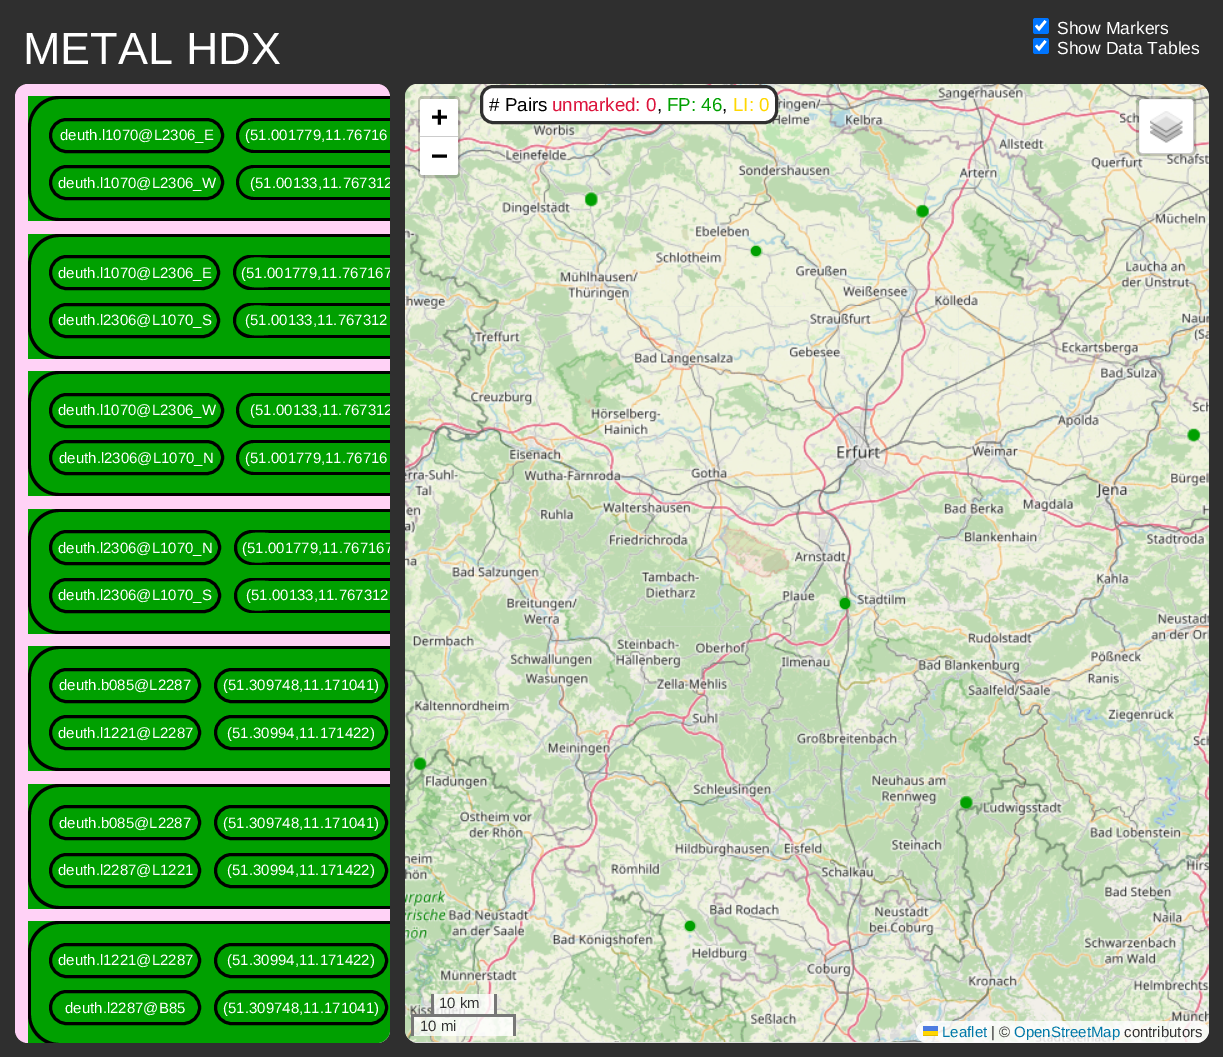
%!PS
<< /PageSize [1223 1057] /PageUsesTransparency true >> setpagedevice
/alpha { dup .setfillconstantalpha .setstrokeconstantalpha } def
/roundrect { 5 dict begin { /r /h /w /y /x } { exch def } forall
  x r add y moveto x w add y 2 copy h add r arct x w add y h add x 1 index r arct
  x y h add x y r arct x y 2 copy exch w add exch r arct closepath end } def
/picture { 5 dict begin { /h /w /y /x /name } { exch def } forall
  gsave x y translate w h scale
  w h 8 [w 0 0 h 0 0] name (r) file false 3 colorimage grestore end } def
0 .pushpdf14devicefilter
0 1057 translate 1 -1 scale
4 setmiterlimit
0.184 setgray
0 0 1223 1057 rectfill
/LiberationSans-Regular [45 0 0 -45 0 0] selectfont
1 setgray
23 64 moveto (METAL HDX) show
0 0.459 1 setrgbcolor
1033 18 16 16 2.5 roundrect fill
1 setgray
2.6 setlinewidth
newpath 1036 25.5 moveto 1039 29 lineto 1045.5 21 lineto stroke
/LiberationSans-Regular [17.5 0 0 -17.5 0 0] selectfont
1057 34 moveto (Show Markers) show
0 0.459 1 setrgbcolor
1033 38 16 16 2.5 roundrect fill
1 setgray
newpath 1036 45.5 moveto 1039 49 lineto 1045.5 41 lineto stroke
1057 54 moveto (Show Data Tables) show
0.867 setgray
405 84 804 959 13 roundrect fill
(img1.rgb) 405 84 234 222 picture
(img2.rgb) 639 84 320 222 picture
1 setgray
481.5 86.5 295 36 11.5 roundrect gsave fill grestore
0.184 setgray
3 setlinewidth
stroke
/LiberationSans-Regular [18.75 0 0 -18.75 0 0] selectfont
0 setgray
489 111 moveto (# Pairs) show
0.863 0.078 0.235 setrgbcolor
552 111 moveto (unmarked: 0) show
0 setgray
657 111 moveto (,) show
0 0.627 0 setrgbcolor
667 111 moveto (FP: 46) show
0 setgray
722 111 moveto (,) show
1 0.843 0 setrgbcolor
733 111 moveto (LI: 0) show
1 0.824 0.965 setrgbcolor
15 84 375 959 13 roundrect fill
0 0.627 0 setrgbcolor
28 96 362 125 rectfill
0 setgray
newpath 59 96 moveto 42 96 28 110 28 127 curveto 28 190 lineto 28 207 42 221 59 221 curveto 390 221 lineto 390 218 lineto 59 218 lineto 44 218 31 205 31 190 curveto 31 127 lineto 31 112 44 99 59 99 curveto 390 99 lineto 390 96 lineto closepath fill
50.5 119.5 172 32 16 roundrect stroke
/LiberationSans-Regular [15 0 0 -15 0 0] selectfont
1 setgray
60 140 moveto (deuth.l1070@L2306_E) show
0 setgray
newpath 254 118 moveto 244 118 236 126 236 136 curveto 236 145 244 153 254 153 curveto 390 153 lineto 390 150 lineto 254 150 lineto 245 150 239 144 239 136 curveto 239 127 245 121 254 121 curveto 390 121 lineto 390 118 lineto closepath fill
1 setgray
245 140 moveto (\(51.001779,11.76716) show
0 setgray
50.5 166.5 172 32 16 roundrect stroke
1 setgray
58 188 moveto (deuth.l1070@L2306_W) show
0 setgray
newpath 254 165 moveto 244 165 236 173 236 182 curveto 236 192 244 200 254 200 curveto 390 200 lineto 390 197 lineto 254 197 lineto 245 197 239 191 239 182 curveto 239 174 245 168 254 168 curveto 390 168 lineto 390 165 lineto closepath fill
gsave
15 84 375 959 13 roundrect clip newpath
1 setgray
250 188 moveto (\(51.00133,11.767312) show
grestore
0 0.627 0 setrgbcolor
28 234 362 125 rectfill
0 setgray
newpath 59 234 moveto 42 234 28 248 28 265 curveto 28 328 lineto 28 345 42 359 59 359 curveto 390 359 lineto 390 356 lineto 59 356 lineto 44 356 31 343 31 328 curveto 31 265 lineto 31 250 44 237 59 237 curveto 390 237 lineto 390 234 lineto closepath fill
50.5 256.5 168 32 16 roundrect stroke
1 setgray
58 278 moveto (deuth.l1070@L2306_E) show
0 setgray
newpath 250 255 moveto 241 255 233 263 233 272 curveto 233 282 241 290 250 290 curveto 390 290 lineto 390 287 lineto 274 287 lineto 263 287 240 292 236 275 curveto 236 273 236 270 237 267 curveto 243 253 263 258 274 258 curveto 390 258 lineto 390 255 lineto 388 255 lineto closepath fill
gsave
15 84 375 959 13 roundrect clip newpath
1 setgray
241 278 moveto (\(51.001779,11.767167) show
grestore
50.5 304.5 168 32 16 roundrect stroke
1 setgray
58 325 moveto (deuth.l2306@L1070_S) show
0 setgray
newpath 250 303 moveto 241 303 233 311 233 320 curveto 233 330 241 338 250 338 curveto 390 338 lineto 390 335 lineto 274 335 lineto 263 335 240 340 236 323 curveto 236 321 236 318 237 315 curveto 243 301 263 306 274 306 curveto 390 306 lineto 390 303 lineto 388 303 lineto closepath fill
1 setgray
245 325 moveto (\(51.00133,11.767312) show
0 0.627 0 setrgbcolor
28 371 362 125 rectfill
0 setgray
newpath 59 371 moveto 42 371 28 385 28 402 curveto 28 465 lineto 28 482 42 496 59 496 curveto 390 496 lineto 390 493 lineto 59 493 lineto 44 493 31 480 31 465 curveto 31 402 lineto 31 387 44 374 59 374 curveto 390 374 lineto 390 371 lineto closepath fill
50.5 394.5 172 32 16 roundrect stroke
1 setgray
58 415 moveto (deuth.l1070@L2306_W) show
0 setgray
newpath 254 393 moveto 244 393 236 401 236 410 curveto 236 420 244 428 254 428 curveto 390 428 lineto 390 425 lineto 254 425 lineto 245 425 239 419 239 410 curveto 239 402 245 396 254 396 curveto 390 396 lineto 390 393 lineto closepath fill
gsave
15 84 375 959 13 roundrect clip newpath
1 setgray
250 415 moveto (\(51.00133,11.767312) show
grestore
50.5 441.5 172 32 16 roundrect stroke
1 setgray
59 463 moveto (deuth.l2306@L1070_N) show
0 setgray
newpath 254 440 moveto 244 440 236 448 236 458 curveto 236 467 244 475 254 475 curveto 390 475 lineto 390 472 lineto 254 472 lineto 245 472 239 466 239 458 curveto 239 449 245 443 254 443 curveto 390 443 lineto 390 440 lineto closepath fill
1 setgray
245 463 moveto (\(51.001779,11.76716) show
0 0.627 0 setrgbcolor
28 509 362 125 rectfill
0 setgray
newpath 59 509 moveto 42 509 28 523 28 540 curveto 28 603 lineto 28 620 42 634 59 634 curveto 390 634 lineto 390 631 lineto 59 631 lineto 44 631 31 618 31 603 curveto 31 540 lineto 31 525 44 512 59 512 curveto 390 512 lineto 390 509 lineto closepath fill
50.5 531.5 169 32 16 roundrect stroke
1 setgray
58 553 moveto (deuth.l2306@L1070_N) show
0 setgray
newpath 252 530 moveto 242 530 234 538 234 548 curveto 234 557 242 565 252 565 curveto 390 565 lineto 390 562 lineto 274 562 lineto 264 562 244 567 238 553 curveto 237 550 237 547 237 545 curveto 241 528 264 533 274 533 curveto 390 533 lineto 390 530 lineto 388 530 lineto closepath fill
gsave
15 84 375 959 13 roundrect clip newpath
1 setgray
242 553 moveto (\(51.001779,11.767167) show
grestore
50.5 579.5 169 32 16 roundrect stroke
1 setgray
58 600 moveto (deuth.l2306@L1070_S) show
0 setgray
newpath 252 578 moveto 242 578 234 586 234 596 curveto 234 605 242 613 252 613 curveto 390 613 lineto 390 610 lineto 274 610 lineto 264 610 244 615 238 601 curveto 237 598 237 595 237 593 curveto 241 576 264 581 274 581 curveto 390 581 lineto 390 578 lineto 388 578 lineto closepath fill
1 setgray
246 600 moveto (\(51.00133,11.767312) show
0 0.627 0 setrgbcolor
28 646 362 125 rectfill
0 setgray
newpath 59 646 moveto 42 646 28 660 28 677 curveto 28 740 lineto 28 757 42 771 59 771 curveto 390 771 lineto 390 768 lineto 59 768 lineto 44 768 31 755 31 740 curveto 31 677 lineto 31 662 44 649 59 649 curveto 390 649 lineto 390 646 lineto closepath fill
50.5 669.5 149 32 16 roundrect stroke
1 setgray
59 690 moveto (deuth.b085@L2287) show
0 setgray
215.5 669.5 171 32 16 roundrect stroke
1 setgray
223 690 moveto (\(51.309748,11.171041\)) show
0 setgray
50.5 716.5 149 32 16 roundrect stroke
1 setgray
58 738 moveto (deuth.l1221@L2287) show
0 setgray
215.5 716.5 171 32 16 roundrect stroke
1 setgray
227 738 moveto (\(51.30994,11.171422\)) show
0 0.627 0 setrgbcolor
28 784 362 125 rectfill
0 setgray
newpath 59 784 moveto 42 784 28 798 28 815 curveto 28 878 lineto 28 895 42 909 59 909 curveto 390 909 lineto 390 906 lineto 59 906 lineto 44 906 31 893 31 878 curveto 31 815 lineto 31 800 44 787 59 787 curveto 390 787 lineto 390 784 lineto closepath fill
50.5 806.5 149 32 16 roundrect stroke
1 setgray
59 828 moveto (deuth.b085@L2287) show
0 setgray
215.5 806.5 171 32 16 roundrect stroke
1 setgray
223 828 moveto (\(51.309748,11.171041\)) show
0 setgray
50.5 854.5 149 32 16 roundrect stroke
1 setgray
58 875 moveto (deuth.l2287@L1221) show
0 setgray
215.5 854.5 171 32 16 roundrect stroke
1 setgray
227 875 moveto (\(51.30994,11.171422\)) show
0 0.627 0 setrgbcolor
newpath 28 921 moveto 390 921 lineto 390 1030 lineto 390 1037 384 1043 377 1043 curveto 28 1043 lineto closepath fill
0 setgray
newpath 59 921 moveto 42 921 28 935 28 952 curveto 28 1015 lineto 28 1027 35 1038 46 1043 curveto 59 1043 lineto 44 1043 31 1030 31 1015 curveto 31 952 lineto 31 937 44 924 59 924 curveto 390 924 lineto 390 921 lineto closepath fill
50.5 944.5 149 32 16 roundrect stroke
1 setgray
58 965 moveto (deuth.l1221@L2287) show
0 setgray
215.5 944.5 171 32 16 roundrect stroke
1 setgray
227 965 moveto (\(51.30994,11.171422\)) show
0 setgray
50.5 991.5 149 32 16 roundrect stroke
1 setgray
65 1013 moveto (deuth.l2287@B85) show
0 setgray
215.5 991.5 171 32 16 roundrect stroke
1 setgray
223 1013 moveto (\(51.309748,11.171041\)) show
(img3.rgb) 959 84 250 222 picture
(img4.rgb) 405 306 234 320 picture
(img5.rgb) 639 306 320 321 picture
(img6.rgb) 959 306 250 320 picture
(img7.rgb) 405 626 234 320 picture
(img8.rgb) 639 626 320 320 picture
(img9.rgb) 959 626 250 320 picture
(img10.rgb) 405 946 234 96 picture
(img11.rgb) 639 946 320 96 picture
(img12.rgb) 959 946 250 96 picture
(img13.rgb) 413 192 788 741 picture
0 0.627 0 setrgbcolor
newpath 591 199 5 0 360 arc closepath fill
newpath 591 200 5 0 360 arc closepath fill
newpath 923 211 5 0 360 arc closepath fill
newpath 756 251 5 0 360 arc closepath fill
newpath 1194 435 5 0 360 arc closepath fill
newpath 845 603 5 0 360 arc closepath fill
newpath 845 604 5 0 360 arc closepath fill
newpath 420 764 5 0 360 arc closepath fill
newpath 966 803 5 0 360 arc closepath fill
newpath 690 926 5 0 360 arc closepath fill
0.2 alpha
0 setgray
419.5 97.5 39 79 3.5 roundrect stroke
1 alpha
1 setgray
newpath 422.5 99 moveto 455.5 99 lineto 457 99 458 100 458 101.5 curveto 458 138 lineto 420 138 lineto 420 101.5 lineto 420 100 421 99 422.5 99 curveto closepath fill
0.8 setgray
420 136 38 1 rectfill
/DejaVuSansMono-Bold [28 0 0 -28 0 0] selectfont
0 setgray
431 126 moveto (+) show
1 setgray
newpath 420 138 moveto 458 138 lineto 458 172.5 lineto 458 174 457 175 455.5 175 curveto 422.5 175 lineto 421 175 420 174 420 172.5 curveto closepath fill
0 setgray
431 165 moveto (−) show
1 setgray
1139 99 55 55 4 roundrect fill
0.2 alpha
0 setgray
1137.5 97.5 57 57 4.5 roundrect stroke
1 alpha
(img14.rgb) 1150 111 33 32 picture
0.8 alpha
1 setgray
434 994 60 20 rectfill
1 alpha
0.467 setgray
494 994 3 22 rectfill
431 994 3 22 rectfill
/LiberationSans-Regular [15 0 0 -15 0 0] selectfont
0.2 setgray
439 1008 moveto (10 km) show
0.8 alpha
1 setgray
414 1017 99 19 rectfill
1 alpha
0.467 setgray
411 1014 104 3 rectfill
513 1014 3 22 rectfill
411 1014 3 22 rectfill
0.2 setgray
420 1031 moveto (10 mi) show
0.8 alpha
1 setgray
newpath 927 1021 moveto 1198 1021 lineto 1204 1021 1209 1026 1209 1032 curveto 1209 1030 lineto 1209 1037 1203 1043 1196 1043 curveto 927 1043 lineto 921 1043 916 1038 916 1032 curveto 916 1026 921 1021 927 1021 curveto closepath fill
1 alpha
0 0.471 0.659 setrgbcolor
942 1037 moveto (Leaflet) show
0.298 0.482 0.882 setrgbcolor
923 1026 15 5 rectfill
1 0.835 0 setrgbcolor
923 1031 15 4 rectfill
0.878 0.737 0 setrgbcolor
923 1035 15 1 rectfill
0.2 setgray
991 1037 moveto (| ©) show
0 0.471 0.659 setrgbcolor
1014 1037 moveto (OpenStreetMap) show
0.2 setgray
1124 1037 moveto (contributors) show
.poppdf14devicefilter showpage
